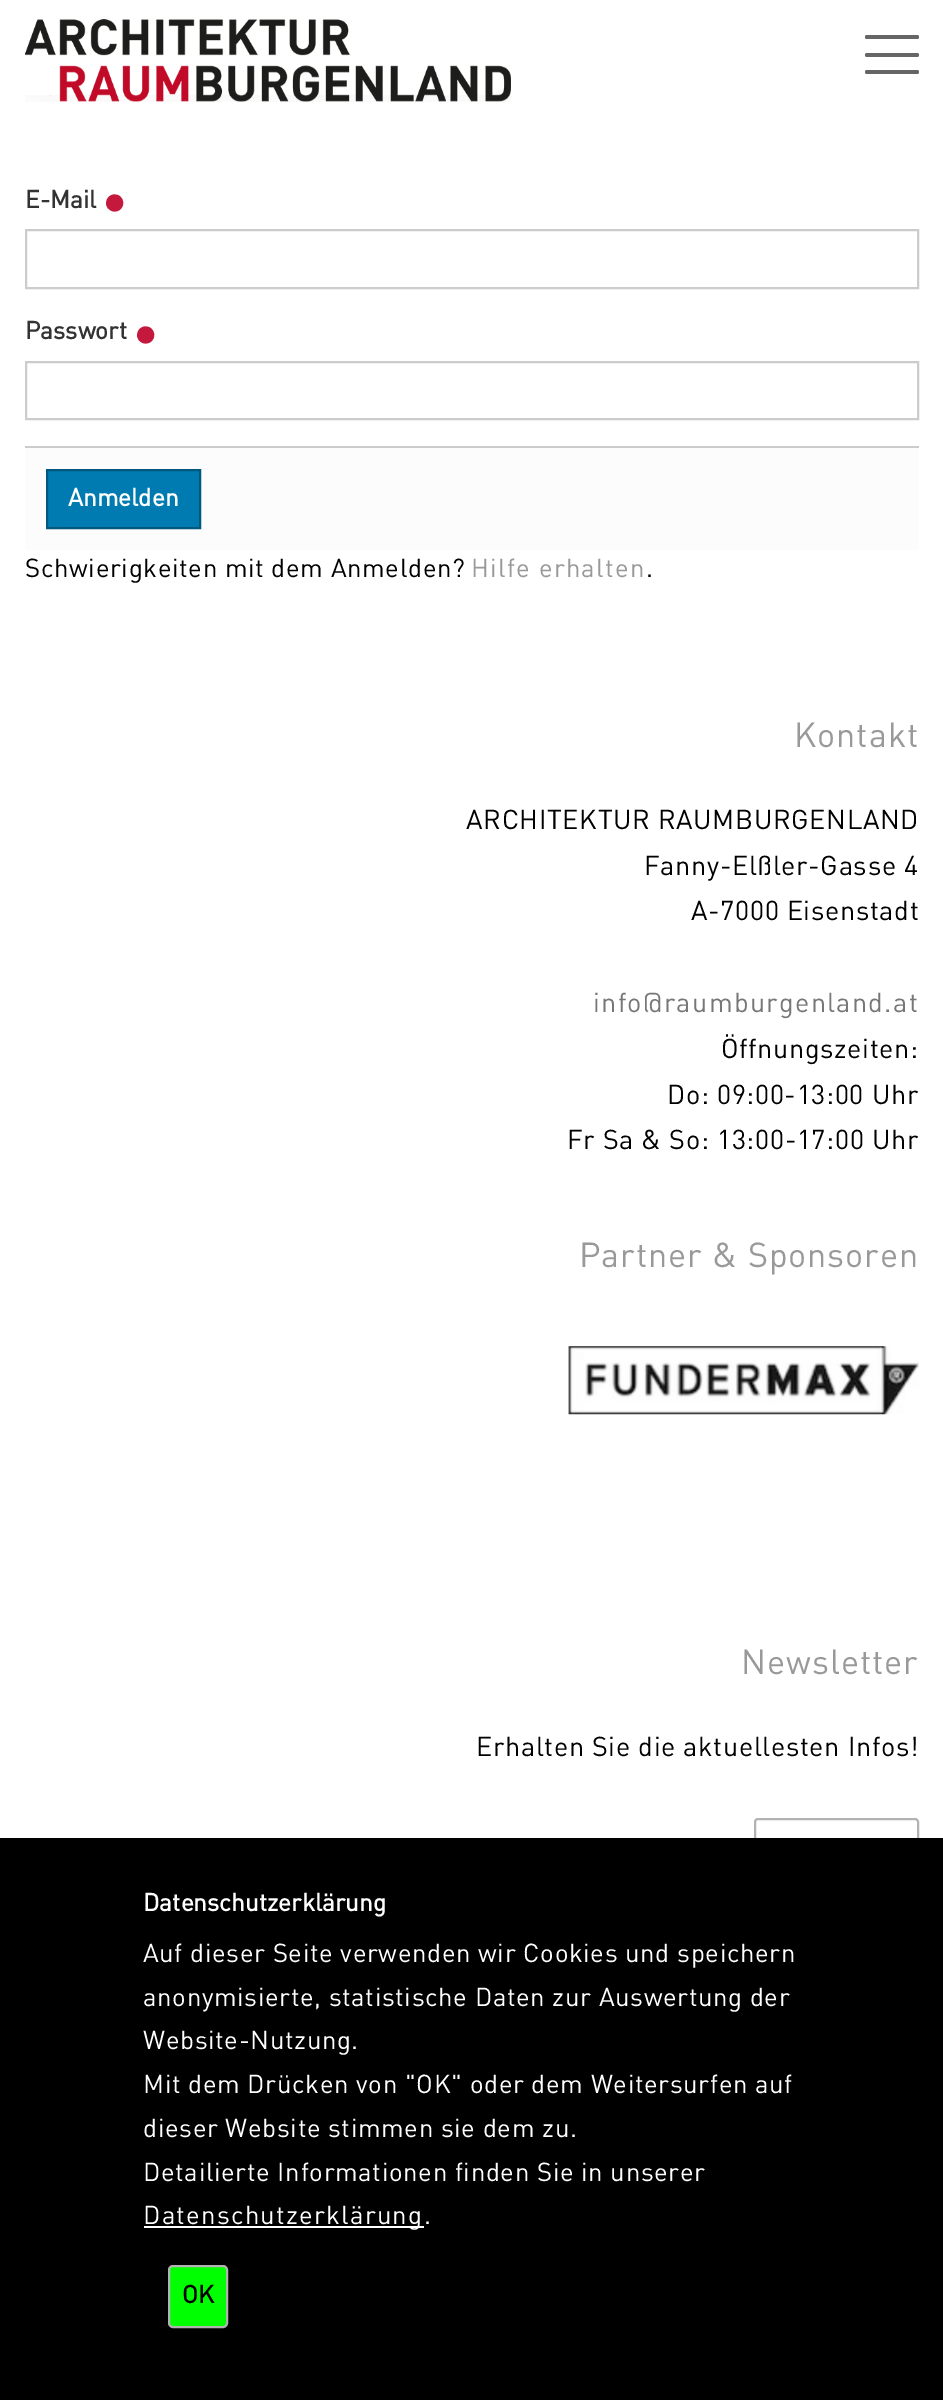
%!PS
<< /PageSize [943 2400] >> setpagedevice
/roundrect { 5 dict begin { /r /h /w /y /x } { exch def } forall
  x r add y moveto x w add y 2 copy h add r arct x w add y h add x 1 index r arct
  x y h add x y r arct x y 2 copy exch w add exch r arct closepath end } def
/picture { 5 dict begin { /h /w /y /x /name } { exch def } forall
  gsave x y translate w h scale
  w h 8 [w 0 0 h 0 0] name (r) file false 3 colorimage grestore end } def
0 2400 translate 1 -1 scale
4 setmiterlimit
1 setgray
0 0 943 2400 rectfill
(img1.rgb) 25 19 486 83 picture
0.4 setgray
865 53 54 4 2 roundrect fill
865 35 54 4 2 roundrect fill
865 70 54 4 2 roundrect fill
/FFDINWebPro-Bold [24.5 0 0 -24.5 0 0] selectfont
0.2 setgray
25 208 moveto (E-Mail) show
/FFDINWebPro-Bold [49 0 0 -49 0 0] selectfont
0.769 0.094 0.235 setrgbcolor
101 220 moveto (•) show
0.8 setgray
2 setlinewidth
26 230 892 58 rectstroke
/FFDINWebPro-Bold [24.5 0 0 -24.5 0 0] selectfont
0.2 setgray
25 339 moveto (Passwort) show
/FFDINWebPro-Bold [49 0 0 -49 0 0] selectfont
0.769 0.094 0.235 setrgbcolor
132 352 moveto (•) show
0.8 setgray
26 362 892 57 rectstroke
0.988 0.988 0.992 setrgbcolor
25 448 894 102 rectfill
0.8 setgray
25 446 894 2 rectfill
0 0.482 0.694 setrgbcolor
newpath 47 470 moveto 200 470 lineto 200 528 lineto 47 528 lineto closepath gsave fill grestore
0 0.345 0.494 setrgbcolor
stroke
/FFDINWebPro-Bold [24.5 0 0 -24.5 0 0] selectfont
1 setgray
68 506 moveto (Anmelden) show
/FFDINWebPro-Regular [25.75 0 0 -25.75 0 0] selectfont
0 setgray
25 577 moveto 0.65 0 (Schwierigkeiten mit dem Anmelden?) ashow
0.6 setgray
471 577 moveto 1.25 0 (Hilfe erhalten) ashow
0 setgray
646 577 moveto 0.65 0 (.) ashow
/FFDINWebPro-Regular [34.25 0 0 -34.25 0 0] selectfont
0.6 setgray
794 747 moveto 0.9 0 (Kontakt) ashow
/FFDINWebPro-Regular [27 0 0 -27 0 0] selectfont
0 setgray
466 829 moveto 0.65 0 (ARCHITEKTUR RAUMBURGENLAND) ashow
644 875 moveto 0.65 0 (Fanny-Elßler-Gasse 4) ashow
691 920 moveto 0.65 0 (A-7000 Eisenstadt) ashow
0.467 setgray
593 1012 moveto 1.35 0 (info@raumburgenland.at) ashow
0 setgray
721 1058 moveto 0.65 0 (Öffnungszeiten:) ashow
667 1104 moveto 0.65 0 (Do: 09:00-13:00 Uhr) ashow
567 1149 moveto 0.65 0 (Fr Sa & So: 13:00-17:00 Uhr) ashow
/FFDINWebPro-Regular [34.25 0 0 -34.25 0 0] selectfont
0.6 setgray
579 1267 moveto 0.9 0 (Partner & Sponsoren) ashow
(img2.rgb) 568 1346 351 69 picture
741 1674 moveto 0.9 0 (Newsletter) ashow
/FFDINWebPro-Regular [27 0 0 -27 0 0] selectfont
0 setgray
476 1756 moveto 0.65 0 (Erhalten Sie die aktuellesten Infos!) ashow
0.698 setgray
755 1819 163 58 3 roundrect stroke
0 setgray
0 1838 943 562 rectfill
/FFDINWebPro-Bold [24.5 0 0 -24.5 0 0] selectfont
1 setgray
143 1911 moveto (Datenschutzerklärung) show
/FFDINWebPro-Regular [25.75 0 0 -25.75 0 0] selectfont
143 1962 moveto 0.65 0 (Auf dieser Seite verwenden wir Cookies und speichern) ashow
143 2006 moveto 0.65 0 (anonymisierte, statistische Daten zur Auswertung der) ashow
143 2049 moveto 0.65 0 (Website-Nutzung.) ashow
143 2093 moveto 0.65 0 (Mit dem Drücken von "OK" oder dem Weitersurfen auf) ashow
143 2137 moveto 0.65 0 (dieser Website stimmen sie dem zu.) ashow
143 2181 moveto 0.65 0 (Detailierte Informationen finden Sie in unserer) ashow
144 2226 280 2 rectfill
143 2224 moveto 1.25 0 (Datenschutzerklärung) ashow
424 2224 moveto 0.65 0 (.) ashow
0 1 0 setrgbcolor
169 2266 58 61 4 roundrect gsave fill grestore
0.698 setgray
stroke
/FFDINWebPro-Bold [24.5 0 0 -24.5 0 0] selectfont
0 setgray
182 2303 moveto (OK) show
showpage
